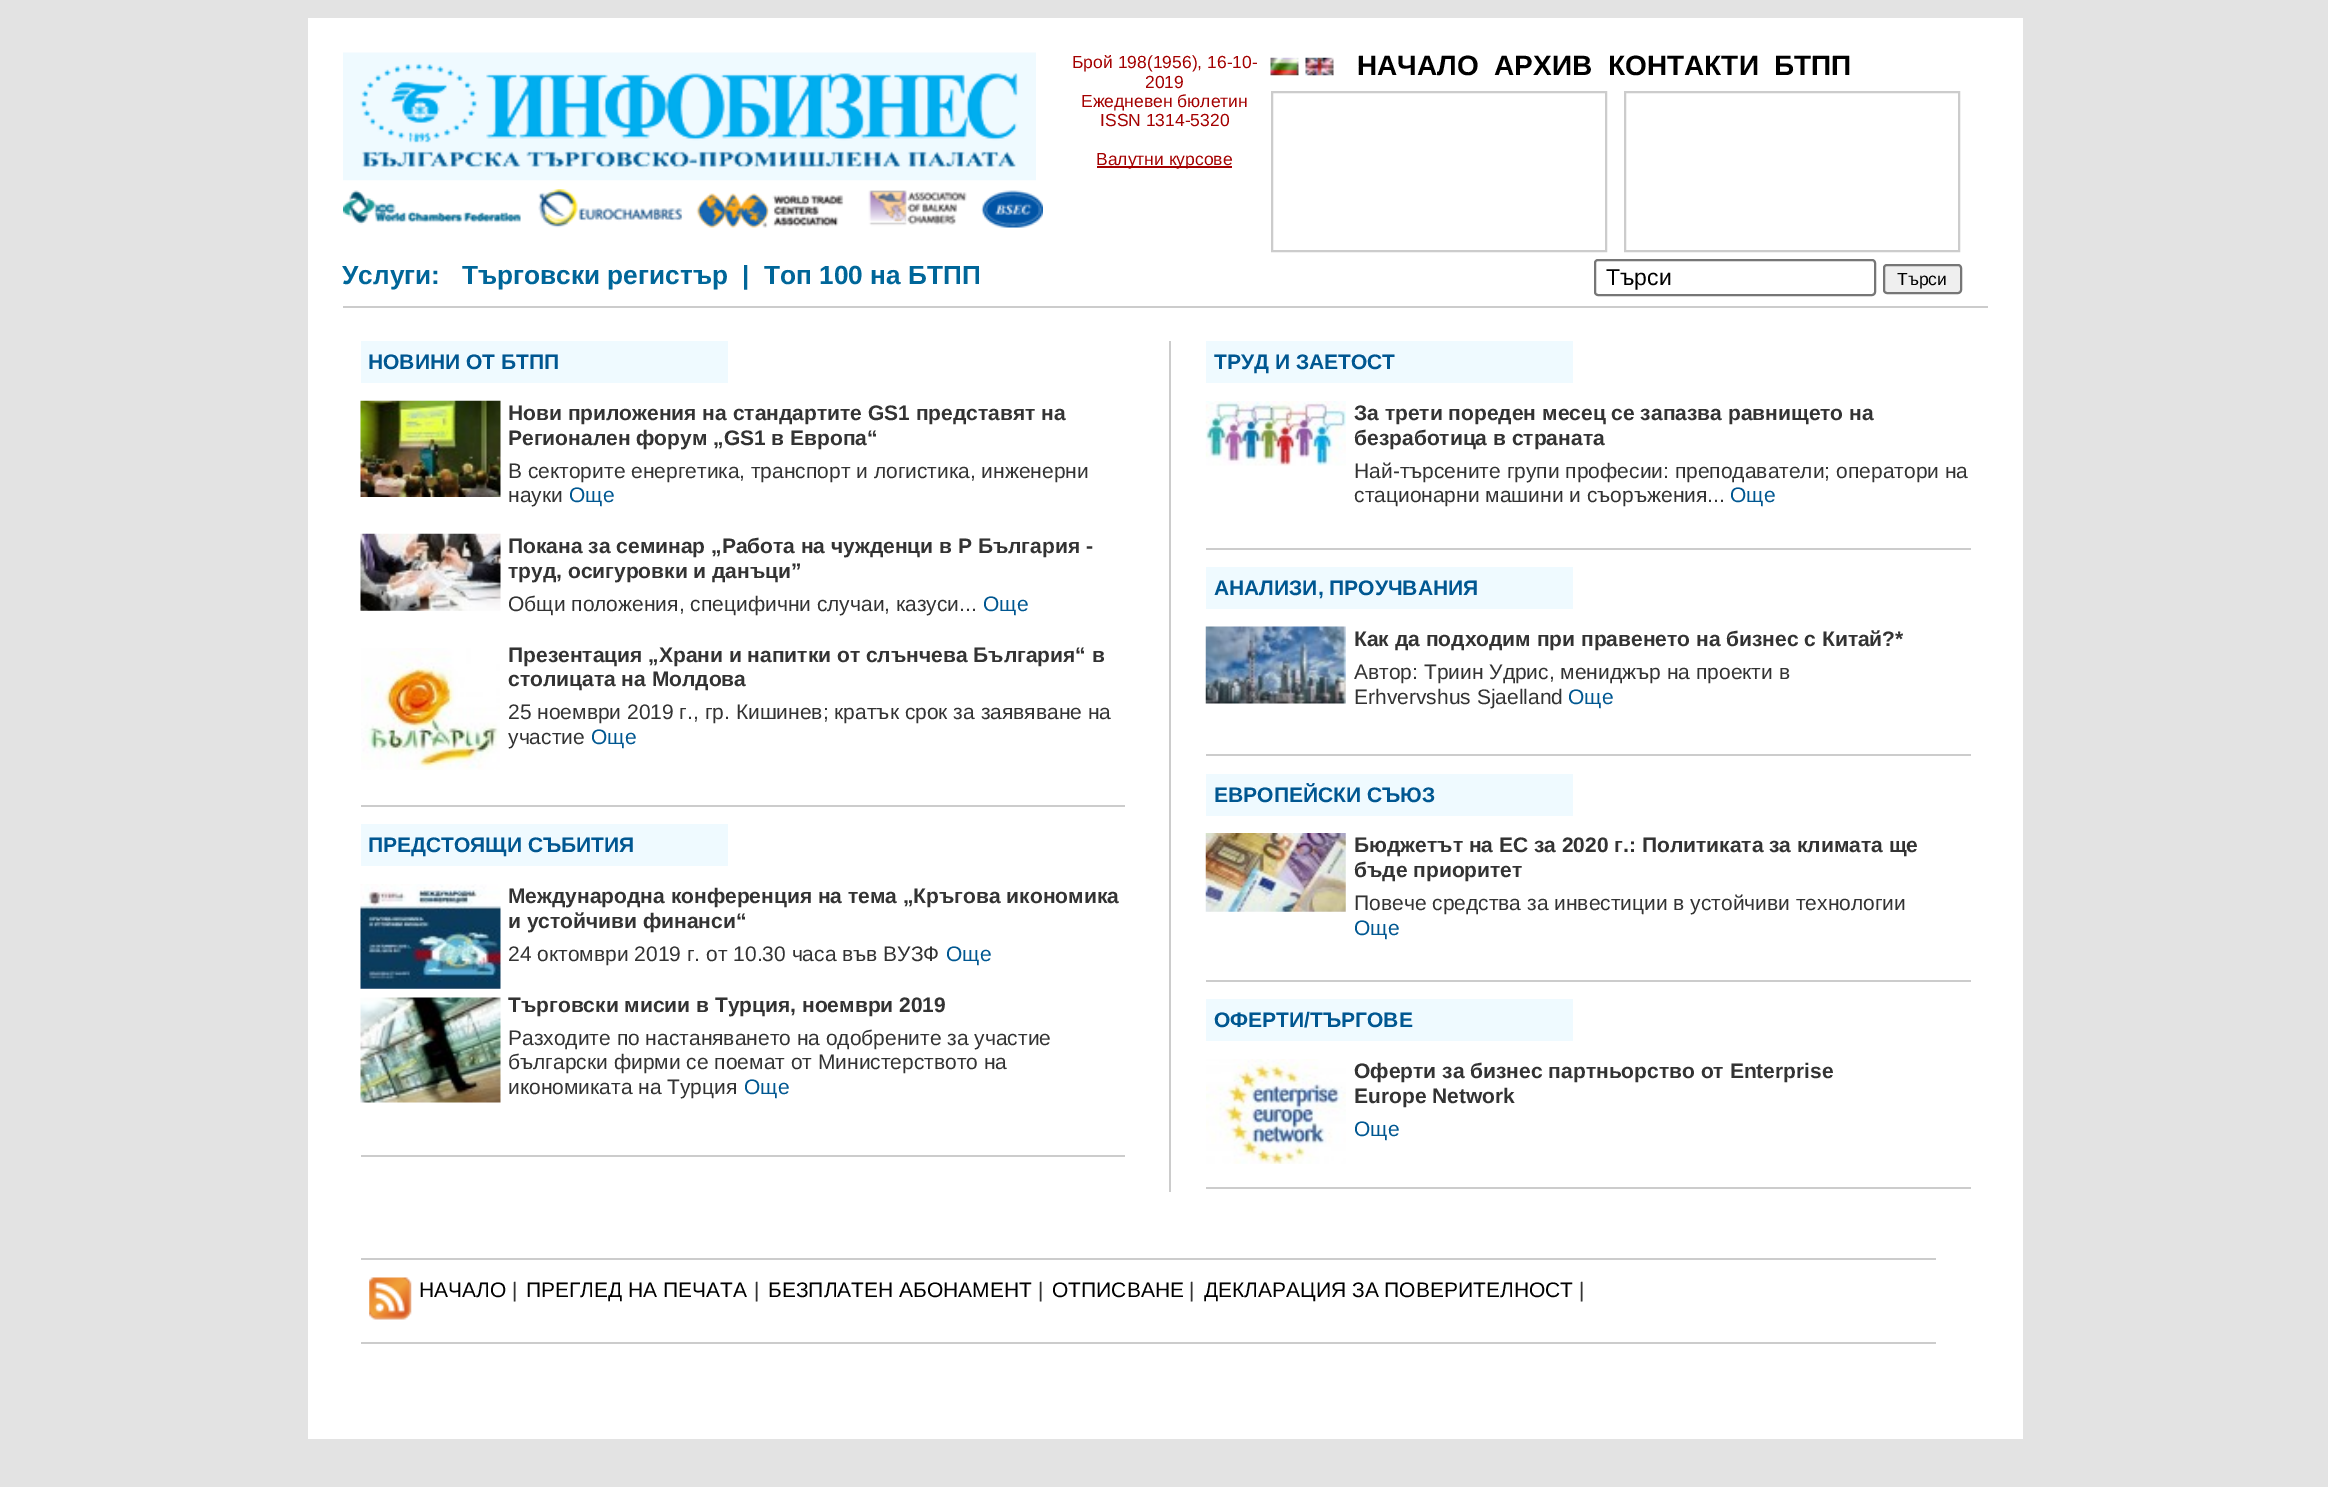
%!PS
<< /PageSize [2328 1487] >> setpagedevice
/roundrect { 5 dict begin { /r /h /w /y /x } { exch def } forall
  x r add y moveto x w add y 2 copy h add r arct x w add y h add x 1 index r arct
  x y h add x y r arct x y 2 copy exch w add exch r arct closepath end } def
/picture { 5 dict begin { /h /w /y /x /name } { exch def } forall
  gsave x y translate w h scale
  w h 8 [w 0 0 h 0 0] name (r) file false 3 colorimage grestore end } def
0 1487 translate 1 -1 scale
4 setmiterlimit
0.89 setgray
0 0 2328 1487 rectfill
1 setgray
308 18 1715 1421 rectfill
0.8 setgray
343 306 1645 2 rectfill
(img1.rgb) 343 52 693 129 picture
(img2.rgb) 343 189 700 39 picture
/LiberationSans-Regular [17.5 0 0 -17.5 0 0] selectfont
0.643 0 0 setrgbcolor
1072 68 moveto (Брой 198\(1956\), 16-10-) show
1145 88 moveto (2019) show
1081 107 moveto (Ежедневен бюлетин) show
1100 126 moveto (ISSN 1314-5320) show
1097 166 135 2 rectfill
1096 165 moveto (Валутни курсове) show
(img3.rgb) 1270 57 29 19 picture
(img4.rgb) 1305 57 29 19 picture
/LiberationSans-Bold [28 0 0 -28 0 0] selectfont
0 setgray
1357 75 moveto (НАЧАЛО) show
1494 75 moveto (АРХИВ) show
1608 75 moveto (КОНТАКТИ) show
1774 75 moveto (БТПП) show
0.8 setgray
2 setlinewidth
1272 92 334 159 rectstroke
1625 92 334 159 rectstroke
/LiberationSans-Bold [26.25 0 0 -26.25 0 0] selectfont
0 0.4 0.6 setrgbcolor
342 284 moveto (Услуги:) show
462 284 moveto (Търговски регистър) show
742 284 moveto (|) show
764 284 moveto (Топ 100 на БТПП) show
0.463 setgray
1595 260 280 35 3 roundrect stroke
/LiberationSans-Regular [23 0 0 -23 0 0] selectfont
0 setgray
1606 285 moveto (Търси) show
0.937 setgray
1884 265 77 28 3 roundrect gsave fill grestore
0.463 setgray
stroke
/LiberationSans-Regular [17.5 0 0 -17.5 0 0] selectfont
0 setgray
1897 285 moveto (Търси) show
0.8 setgray
1169 341 2 851 rectfill
361 805 764 2 rectfill
0.937 0.98 1 setrgbcolor
361 341 367 42 rectfill
/LiberationSans-Bold [21 0 0 -21 0 0] selectfont
0 0.341 0.569 setrgbcolor
368 369 moveto (НОВИНИ ОТ БТПП) show
(img5.rgb) 360 400 141 97 picture
0.2 setgray
508 420 moveto (Нови приложения на стандартите GS1 представят на) show
508 445 moveto (Регионален форум „GS1 в Европа“) show
/LiberationSans-Regular [21 0 0 -21 0 0] selectfont
508 478 moveto (В секторите енергетика, транспорт и логистика, инженерни) show
508 502 moveto (науки) show
0 0.341 0.569 setrgbcolor
569 502 moveto (Още) show
(img6.rgb) 360 533 141 78 picture
/LiberationSans-Bold [21 0 0 -21 0 0] selectfont
0.2 setgray
508 553 moveto (Покана за семинар „Работа на чужденци в Р България -) show
508 578 moveto (труд, осигуровки и данъци”) show
/LiberationSans-Regular [21 0 0 -21 0 0] selectfont
508 611 moveto (Общи положения, специфични случаи, казуси...) show
0 0.341 0.569 setrgbcolor
983 611 moveto (Още) show
(img7.rgb) 361 648 139 122 picture
/LiberationSans-Bold [21 0 0 -21 0 0] selectfont
0.2 setgray
508 662 moveto (Презентация „Храни и напитки от слънчева България“ в) show
508 686 moveto (столицата на Молдова) show
/LiberationSans-Regular [21 0 0 -21 0 0] selectfont
508 719 moveto (25 ноември 2019 г., гр. Кишинев; кратък срок за заявяване на) show
508 744 moveto (участие) show
0 0.341 0.569 setrgbcolor
591 744 moveto (Още) show
0.8 setgray
361 1155 764 2 rectfill
0.937 0.98 1 setrgbcolor
361 824 367 42 rectfill
/LiberationSans-Bold [21 0 0 -21 0 0] selectfont
0 0.341 0.569 setrgbcolor
368 852 moveto (ПРЕДСТОЯЩИ СЪБИТИЯ) show
(img8.rgb) 360 884 141 105 picture
0.2 setgray
508 903 moveto (Международна конференция на тема „Кръгова икономика) show
508 928 moveto (и устойчиви финанси“) show
/LiberationSans-Regular [21 0 0 -21 0 0] selectfont
508 961 moveto (24 октомври 2019 г. от 10.30 часа във ВУЗФ) show
0 0.341 0.569 setrgbcolor
946 961 moveto (Още) show
(img9.rgb) 360 997 141 106 picture
/LiberationSans-Bold [21 0 0 -21 0 0] selectfont
0.2 setgray
508 1012 moveto (Търговски мисии в Турция, ноември 2019) show
/LiberationSans-Regular [21 0 0 -21 0 0] selectfont
508 1045 moveto (Разходите по настаняването на одобрените за участие) show
508 1069 moveto (български фирми се поемат от Министерството на) show
508 1094 moveto (икономиката на Турция) show
0 0.341 0.569 setrgbcolor
744 1094 moveto (Още) show
0.8 setgray
1206 548 765 2 rectfill
0.937 0.98 1 setrgbcolor
1206 341 367 42 rectfill
/LiberationSans-Bold [21 0 0 -21 0 0] selectfont
0 0.341 0.569 setrgbcolor
1214 369 moveto (ТРУД И ЗАЕТОСТ) show
(img10.rgb) 1205 401 141 65 picture
0.2 setgray
1354 420 moveto (За трети пореден месец се запазва равнището на) show
1354 445 moveto (безработица в страната) show
/LiberationSans-Regular [21 0 0 -21 0 0] selectfont
1354 478 moveto (Най-търсените групи професии: преподаватели; оператори на) show
1354 502 moveto (стационарни машини и съоръжения...) show
0 0.341 0.569 setrgbcolor
1730 502 moveto (Още) show
0.8 setgray
1206 754 765 2 rectfill
0.937 0.98 1 setrgbcolor
1206 567 367 42 rectfill
/LiberationSans-Bold [21 0 0 -21 0 0] selectfont
0 0.341 0.569 setrgbcolor
1214 595 moveto (АНАЛИЗИ, ПРОУЧВАНИЯ) show
(img11.rgb) 1205 626 141 78 picture
0.2 setgray
1354 646 moveto (Как да подходим при правенето на бизнес с Китай?*) show
/LiberationSans-Regular [21 0 0 -21 0 0] selectfont
1354 679 moveto (Aвтор: Триин Удрис, мениджър на проекти в) show
1354 704 moveto (Erhvervshus Sjaelland) show
0 0.341 0.569 setrgbcolor
1568 704 moveto (Още) show
0.8 setgray
1206 980 765 2 rectfill
0.937 0.98 1 setrgbcolor
1206 774 367 42 rectfill
/LiberationSans-Bold [21 0 0 -21 0 0] selectfont
0 0.341 0.569 setrgbcolor
1214 802 moveto (ЕВРОПЕЙСКИ СЪЮЗ) show
(img12.rgb) 1205 833 141 79 picture
0.2 setgray
1354 852 moveto (Бюджетът на ЕС за 2020 г.: Политиката за климата ще) show
1354 877 moveto (бъде приоритет) show
/LiberationSans-Regular [21 0 0 -21 0 0] selectfont
1354 910 moveto (Повече средства за инвестиции в устойчиви технологии) show
0 0.341 0.569 setrgbcolor
1354 935 moveto (Още) show
0.8 setgray
1206 1187 765 2 rectfill
0.937 0.98 1 setrgbcolor
1206 999 367 42 rectfill
/LiberationSans-Bold [21 0 0 -21 0 0] selectfont
0 0.341 0.569 setrgbcolor
1214 1027 moveto (ОФЕРТИ/ТЪРГОВЕ) show
(img13.rgb) 1206 1059 140 105 picture
0.2 setgray
1354 1078 moveto (Оферти за бизнес партньорство от Enterprise) show
1354 1103 moveto (Europe Network) show
/LiberationSans-Regular [21 0 0 -21 0 0] selectfont
0 0.341 0.569 setrgbcolor
1354 1136 moveto (Още) show
0.8 setgray
361 1258 1575 2 rectfill
361 1342 1575 2 rectfill
(img14.rgb) 369 1277 43 43 picture
0 setgray
419 1297 moveto (НАЧАЛО) show
0.2 setgray
512 1297 moveto (|) show
0 setgray
526 1297 moveto (ПРЕГЛЕД НА ПЕЧАТА) show
0.2 setgray
754 1297 moveto (|) show
0 setgray
768 1297 moveto (БЕЗПЛАТЕН AБОНАМЕНТ) show
0.2 setgray
1038 1297 moveto (|) show
0 setgray
1052 1297 moveto (ОТПИСВАНЕ) show
0.2 setgray
1189 1297 moveto (|) show
0 setgray
1204 1297 moveto (ДЕКЛАРАЦИЯ ЗА ПОВЕРИТЕЛНОСT) show
0.2 setgray
1579 1297 moveto (|) show
showpage
